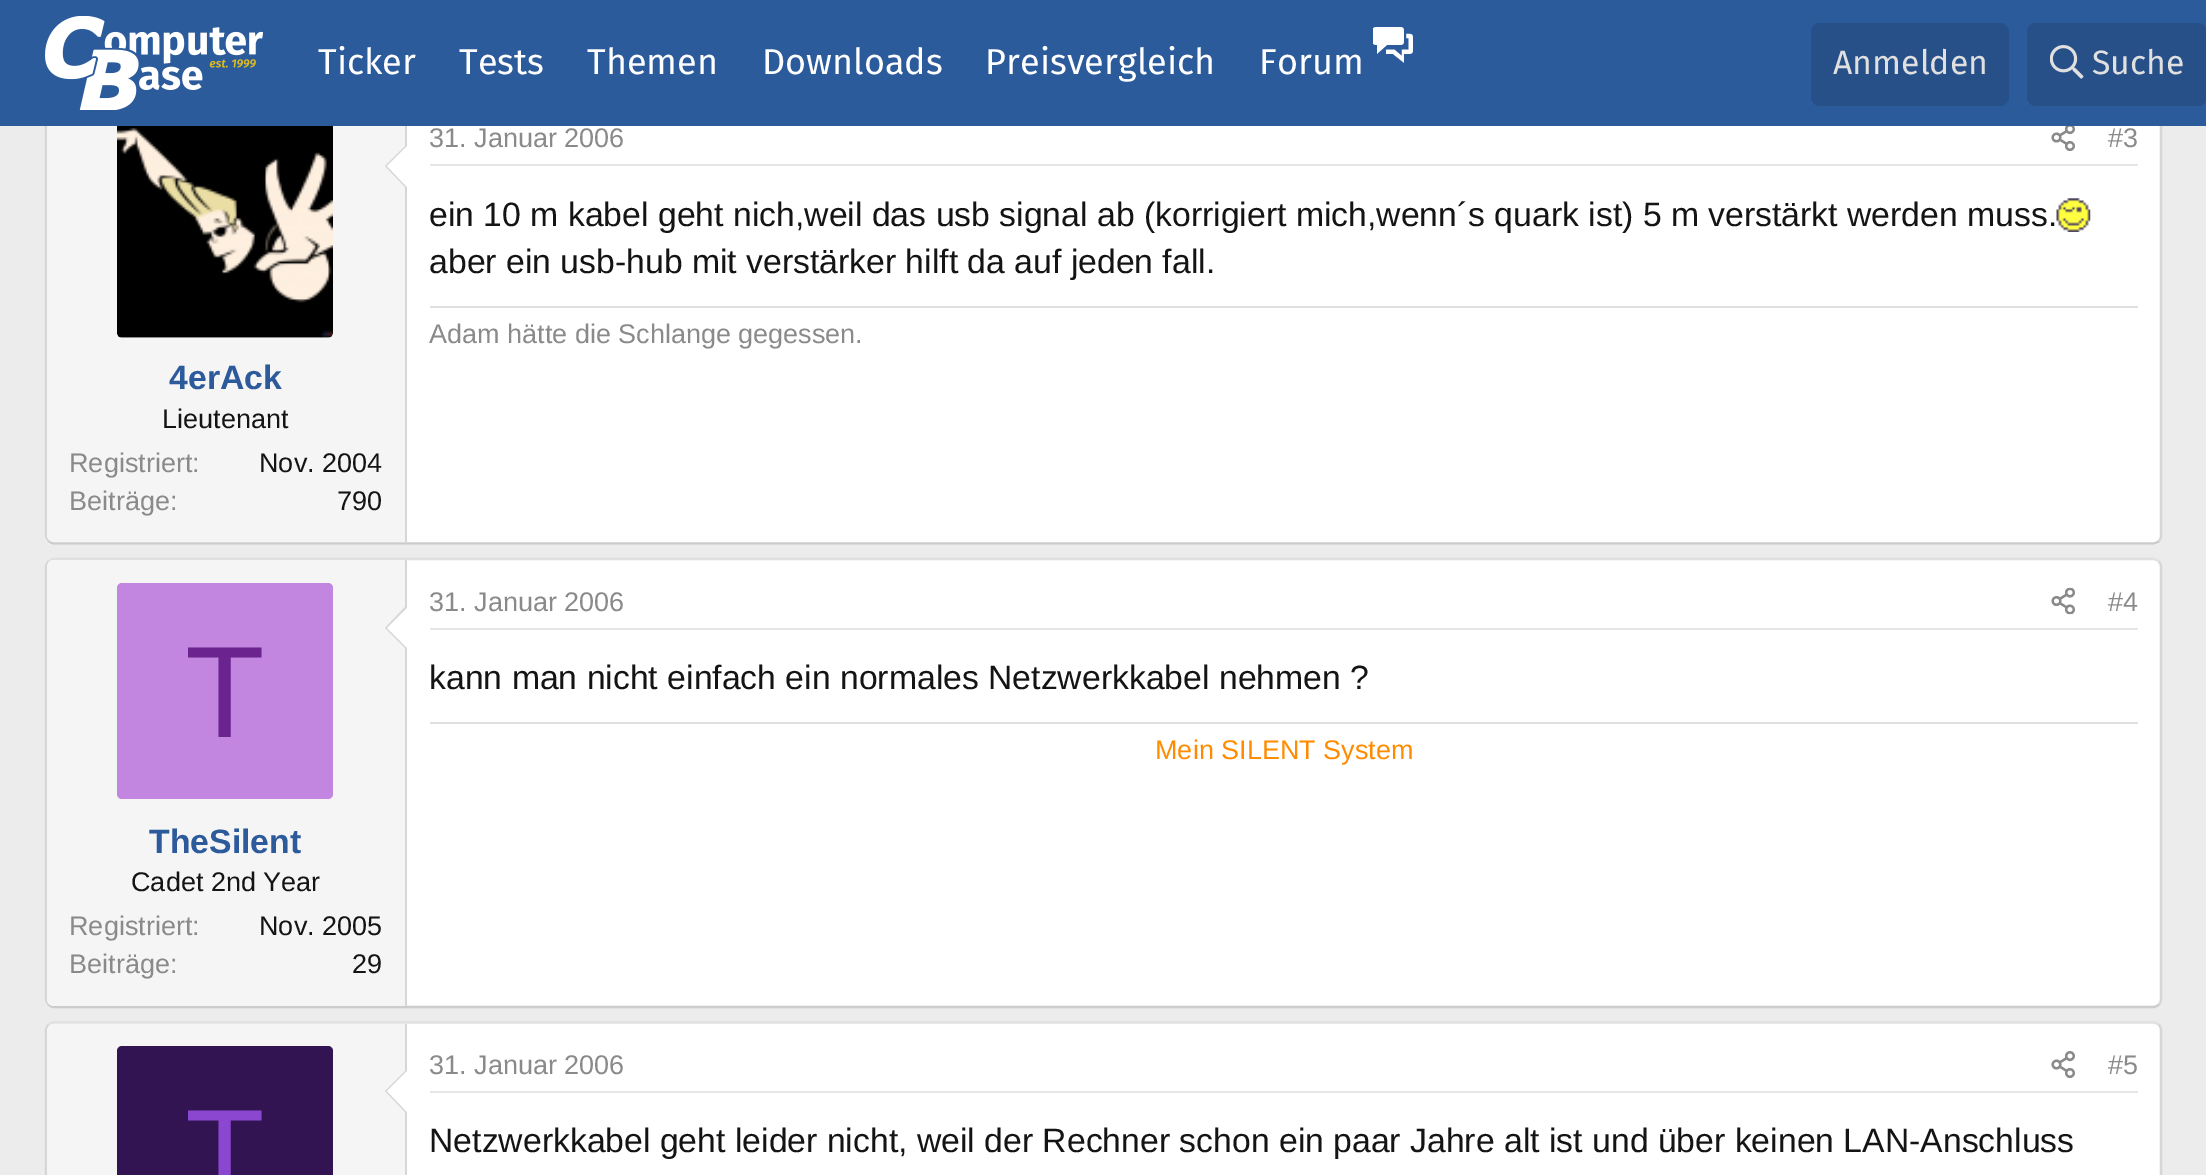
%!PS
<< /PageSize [2206 1175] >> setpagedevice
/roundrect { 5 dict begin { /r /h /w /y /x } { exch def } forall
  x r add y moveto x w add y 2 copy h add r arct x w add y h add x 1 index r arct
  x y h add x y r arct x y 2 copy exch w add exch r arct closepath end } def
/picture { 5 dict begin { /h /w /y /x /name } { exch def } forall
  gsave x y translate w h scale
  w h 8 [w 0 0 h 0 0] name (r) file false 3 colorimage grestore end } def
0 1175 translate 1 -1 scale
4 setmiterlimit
0.925 setgray
0 0 2206 1175 rectfill
1 setgray
45 97 2117 448 9 roundrect fill
0.839 setgray
2.2 setlinewidth
newpath 2159 100 moveto 2160.5 101.5 2161 103.5 2161 106 curveto 2161 535.5 lineto 2161 537.5 2160.5 539.5 2159 541 curveto stroke
0.8 setgray
newpath 2159 541 moveto 2157.5 542.5 2155.5 543.5 2153 543.5 curveto 54 543.5 lineto 52 543.5 50 542.5 48.5 541 curveto stroke
0.839 setgray
newpath 48.5 541 moveto 47 539.5 46 537.5 46 535.5 curveto 46 106 lineto 46 103.5 47 101.5 48.5 100 curveto stroke
0.961 setgray
newpath 54 99 moveto 407 99 lineto 407 542 lineto 54 542 lineto 50 542 47 539 47 535 curveto 47 106 lineto 47 102 50 99 54 99 curveto closepath fill
0.173 0.357 0.612 setrgbcolor
0 0 2206 126 rectfill
(img1.rgb) 45 16 218 94 picture
/FiraSans-Regular [36 0 0 -36 0 0] selectfont
1 setgray
318 74 moveto (Ticker) show
459 74 moveto (Tests) show
587 74 moveto (Themen) show
762 74 moveto (Downloads) show
985 74 moveto (Preisvergleich) show
(img2.rgb) 1373 27 40 36 picture
1259 74 moveto (Forum) show
0.157 0.314 0.533 setrgbcolor
1811 23 198 83 9 roundrect fill
/FiraSans-Regular [33.75 0 0 -33.75 0 0] selectfont
0.878 setgray
1833 74 moveto (Anmelden) show
0.157 0.314 0.533 setrgbcolor
2027 23 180 83 9 roundrect fill
(img3.rgb) 2050 45 34 34 picture
0.878 setgray
2092 74 moveto (Suche) show
0.902 setgray
430 164 1708 2 rectfill
/LiberationSans-Regular [27 0 0 -27 0 0] selectfont
0.541 setgray
429 147 moveto (31. Januar 2006) show
(img4.rgb) 2051 126 24 25 picture
2108 147 moveto (#3) show
/LiberationSans-Regular [33.75 0 0 -33.75 0 0] selectfont
0.078 setgray
429 226 moveto (ein 10 m kabel geht nich,weil das usb signal ab \(korrigiert mich,wenn´s quark ist\) 5 m verstärkt werden muss.) show
(img5.rgb) 2056 198 35 34 picture
429 273 moveto (aber ein usb-hub mit verstärker hilft da auf jeden fall.) show
0.878 setgray
430 306 1708 2 rectfill
/LiberationSans-Regular [27 0 0 -27 0 0] selectfont
0.541 setgray
429 343 moveto (Adam hätte die Schlange gegessen.) show
0.839 setgray
405 126 2 416 rectfill
(img6.rgb) 117 126 216 212 picture
newpath 407 144 moveto 407 189 lineto 385 166 lineto closepath fill
1 setgray
newpath 407 146 moveto 407 187 lineto 387 166 lineto closepath fill
/LiberationSans-Bold [33.75 0 0 -33.75 0 0] selectfont
0.173 0.353 0.608 setrgbcolor
169 389 moveto (4erAck) show
/LiberationSans-Regular [27 0 0 -27 0 0] selectfont
0.078 setgray
162 428 moveto (Lieutenant) show
0.541 setgray
69 472 moveto (Registriert:) show
0.078 setgray
259 472 moveto (Nov. 2004) show
0.541 setgray
69 510 moveto (Beiträge:) show
0.078 setgray
337 510 moveto (790) show
1 setgray
45 558 2117 450 9 roundrect fill
0.878 setgray
newpath 48.5 561.5 moveto 50 560 52 559 54 559 curveto 2153 559 lineto 2155.5 559 2157.5 560 2159 561.5 curveto stroke
0.839 setgray
newpath 2159 561.5 moveto 2160.5 563 2161 565 2161 567 curveto 2161 999 lineto 2161 1001 2160.5 1003 2159 1004.5 curveto stroke
0.8 setgray
newpath 2159 1004.5 moveto 2157.5 1006 2155.5 1007 2153 1007 curveto 54 1007 lineto 52 1007 50 1006 48.5 1004.5 curveto stroke
0.839 setgray
newpath 48.5 1004.5 moveto 47 1003 46 1001 46 999 curveto 46 567 lineto 46 565 47 563 48.5 561.5 curveto stroke
0.961 setgray
newpath 54 560 moveto 407 560 lineto 407 1006 lineto 54 1006 lineto 50 1006 47 1003 47 999 curveto 47 567 lineto 47 563 50 560 54 560 curveto closepath fill
0.839 setgray
405 560 2 446 rectfill
newpath 407 605 moveto 407 650 lineto 385 628 lineto closepath fill
1 setgray
newpath 407 608 moveto 407 648 lineto 387 628 lineto closepath fill
0.761 0.522 0.878 setrgbcolor
117 583 216 216 5 roundrect fill
/LiberationSans-Regular [130 0 0 -130 0 0] selectfont
0.42 0.141 0.561 setrgbcolor
185 737 moveto (T) show
/LiberationSans-Bold [33.75 0 0 -33.75 0 0] selectfont
0.173 0.353 0.608 setrgbcolor
149 853 moveto (TheSilent) show
/LiberationSans-Regular [27 0 0 -27 0 0] selectfont
0.078 setgray
131 891 moveto (Cadet 2nd Year) show
0.541 setgray
69 935 moveto (Registriert:) show
0.078 setgray
259 935 moveto (Nov. 2005) show
0.541 setgray
69 973 moveto (Beiträge:) show
0.078 setgray
352 973 moveto (29) show
0.902 setgray
430 628 1708 2 rectfill
0.541 setgray
429 611 moveto (31. Januar 2006) show
(img7.rgb) 2051 587 24 28 picture
2108 611 moveto (#4) show
/LiberationSans-Regular [33.75 0 0 -33.75 0 0] selectfont
0.078 setgray
429 689 moveto (kann man nicht einfach ein normales Netzwerkkabel nehmen ?) show
0.878 setgray
430 722 1708 2 rectfill
/LiberationSans-Regular [27 0 0 -27 0 0] selectfont
1 0.549 0 setrgbcolor
1155 759 moveto (Mein SILENT System) show
1 setgray
45 1022 2117 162 9 roundrect fill
0.878 setgray
newpath 48.5 1025 moveto 50 1023.5 52 1022.5 54 1022.5 curveto 2153 1022.5 lineto 2155.5 1022.5 2157.5 1023.5 2159 1025 curveto stroke
0.839 setgray
newpath 2159 1025 moveto 2160.5 1026.5 2161 1028.5 2161 1030.5 curveto 2161 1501 lineto 2161 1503 2160.5 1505 2159 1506.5 curveto stroke
newpath 48.5 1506.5 moveto 47 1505 46 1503 46 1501 curveto 46 1030.5 lineto 46 1028.5 47 1026.5 48.5 1025 curveto stroke
0.961 setgray
newpath 54 1024 moveto 407 1024 lineto 407 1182 lineto 54 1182 lineto 50 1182 47 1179 47 1175 curveto 47 1031 lineto 47 1027 50 1024 54 1024 curveto closepath fill
0.839 setgray
405 1024 2 151 rectfill
newpath 407 1069 moveto 407 1114 lineto 385 1091 lineto closepath fill
1 setgray
newpath 407 1071 moveto 407 1112 lineto 387 1091 lineto closepath fill
0.2 0.078 0.322 setrgbcolor
117 1046 216 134 5 roundrect fill
/LiberationSans-Regular [130 0 0 -130 0 0] selectfont
0.549 0.278 0.82 setrgbcolor
185 1200 moveto (T) show
0.902 setgray
430 1091 1708 2 rectfill
/LiberationSans-Regular [27 0 0 -27 0 0] selectfont
0.541 setgray
429 1074 moveto (31. Januar 2006) show
(img8.rgb) 2051 1051 24 27 picture
2108 1074 moveto (#5) show
/LiberationSans-Regular [33.75 0 0 -33.75 0 0] selectfont
0.078 setgray
429 1152 moveto (Netzwerkkabel geht leider nicht, weil der Rechner schon ein paar Jahre alt ist und über keinen LAN-Anschluss) show
showpage
